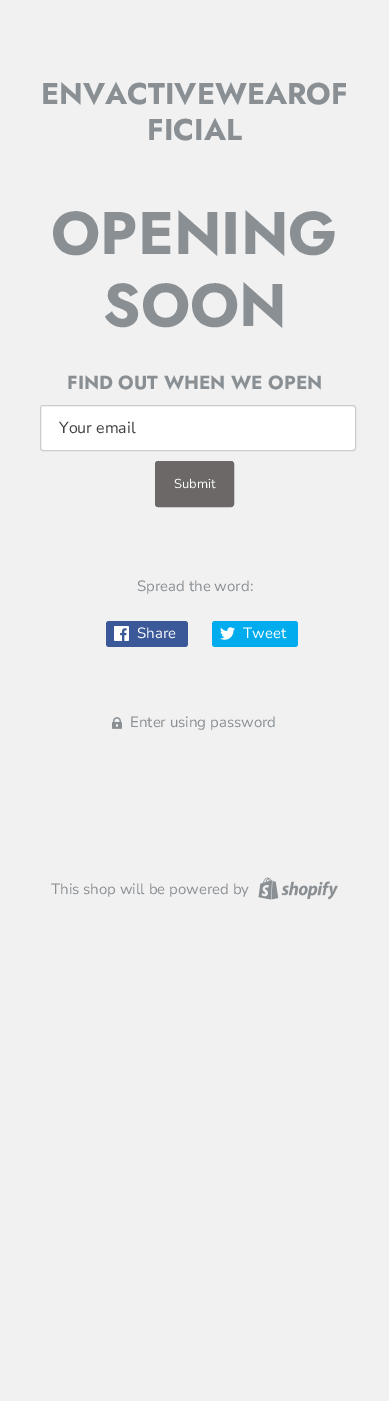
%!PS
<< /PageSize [389 1401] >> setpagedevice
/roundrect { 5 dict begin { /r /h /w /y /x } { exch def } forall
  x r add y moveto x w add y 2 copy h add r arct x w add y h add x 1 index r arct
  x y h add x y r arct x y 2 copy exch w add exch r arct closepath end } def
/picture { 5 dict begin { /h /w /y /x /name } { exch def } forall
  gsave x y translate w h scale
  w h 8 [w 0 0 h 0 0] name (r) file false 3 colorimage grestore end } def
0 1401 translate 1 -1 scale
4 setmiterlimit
0.945 setgray
0 0 389 1401 rectfill
/Jost-Bold [30 0 0 -30 0 0] selectfont
0.541 0.561 0.576 setrgbcolor
41 104 moveto (ENVACTIVEWEAROF) show
147 140 moveto (FICIAL) show
/Jost-Bold [60 0 0 -60 0 0] selectfont
51 254 moveto (OPENING) show
103 326 moveto (SOON) show
/Jost-Bold [19 0 0 -19 0 0] selectfont
67 389 moveto (FIND OUT WHEN WE OPEN) show
1 setgray
40.5 405.5 315 45 2.5 roundrect gsave fill grestore
0.8 setgray
stroke
/NunitoSans-Regular [16 0 0 -16 0 0] selectfont
0.251 setgray
59 433 moveto (Your email) show
0.42 0.408 0.404 setrgbcolor
155.5 461.5 78 45 2.5 roundrect gsave fill grestore
stroke
/NunitoSans-Regular [13 0 0 -13 0 0] selectfont
1 setgray
174 488 moveto (Submit) show
/NunitoSans-Regular [15 0 0 -15 0 0] selectfont
0.541 0.561 0.576 setrgbcolor
137 591 moveto (Spread the word:) show
0.231 0.349 0.596 setrgbcolor
106 621 82 26 3 roundrect fill
(img1.rgb) 114 626 15 15 picture
1 setgray
137 638 moveto (Share) show
0 0.675 0.929 setrgbcolor
212 621 86 26 3 roundrect fill
(img2.rgb) 220 627 15 13 picture
1 setgray
243 638 moveto (Tweet) show
(img3.rgb) 112 717 10 12 picture
0.541 0.561 0.576 setrgbcolor
130 727 moveto (Enter using password) show
51 894 moveto (This shop will be powered by) show
(img4.rgb) 258 877 80 23 picture
showpage
